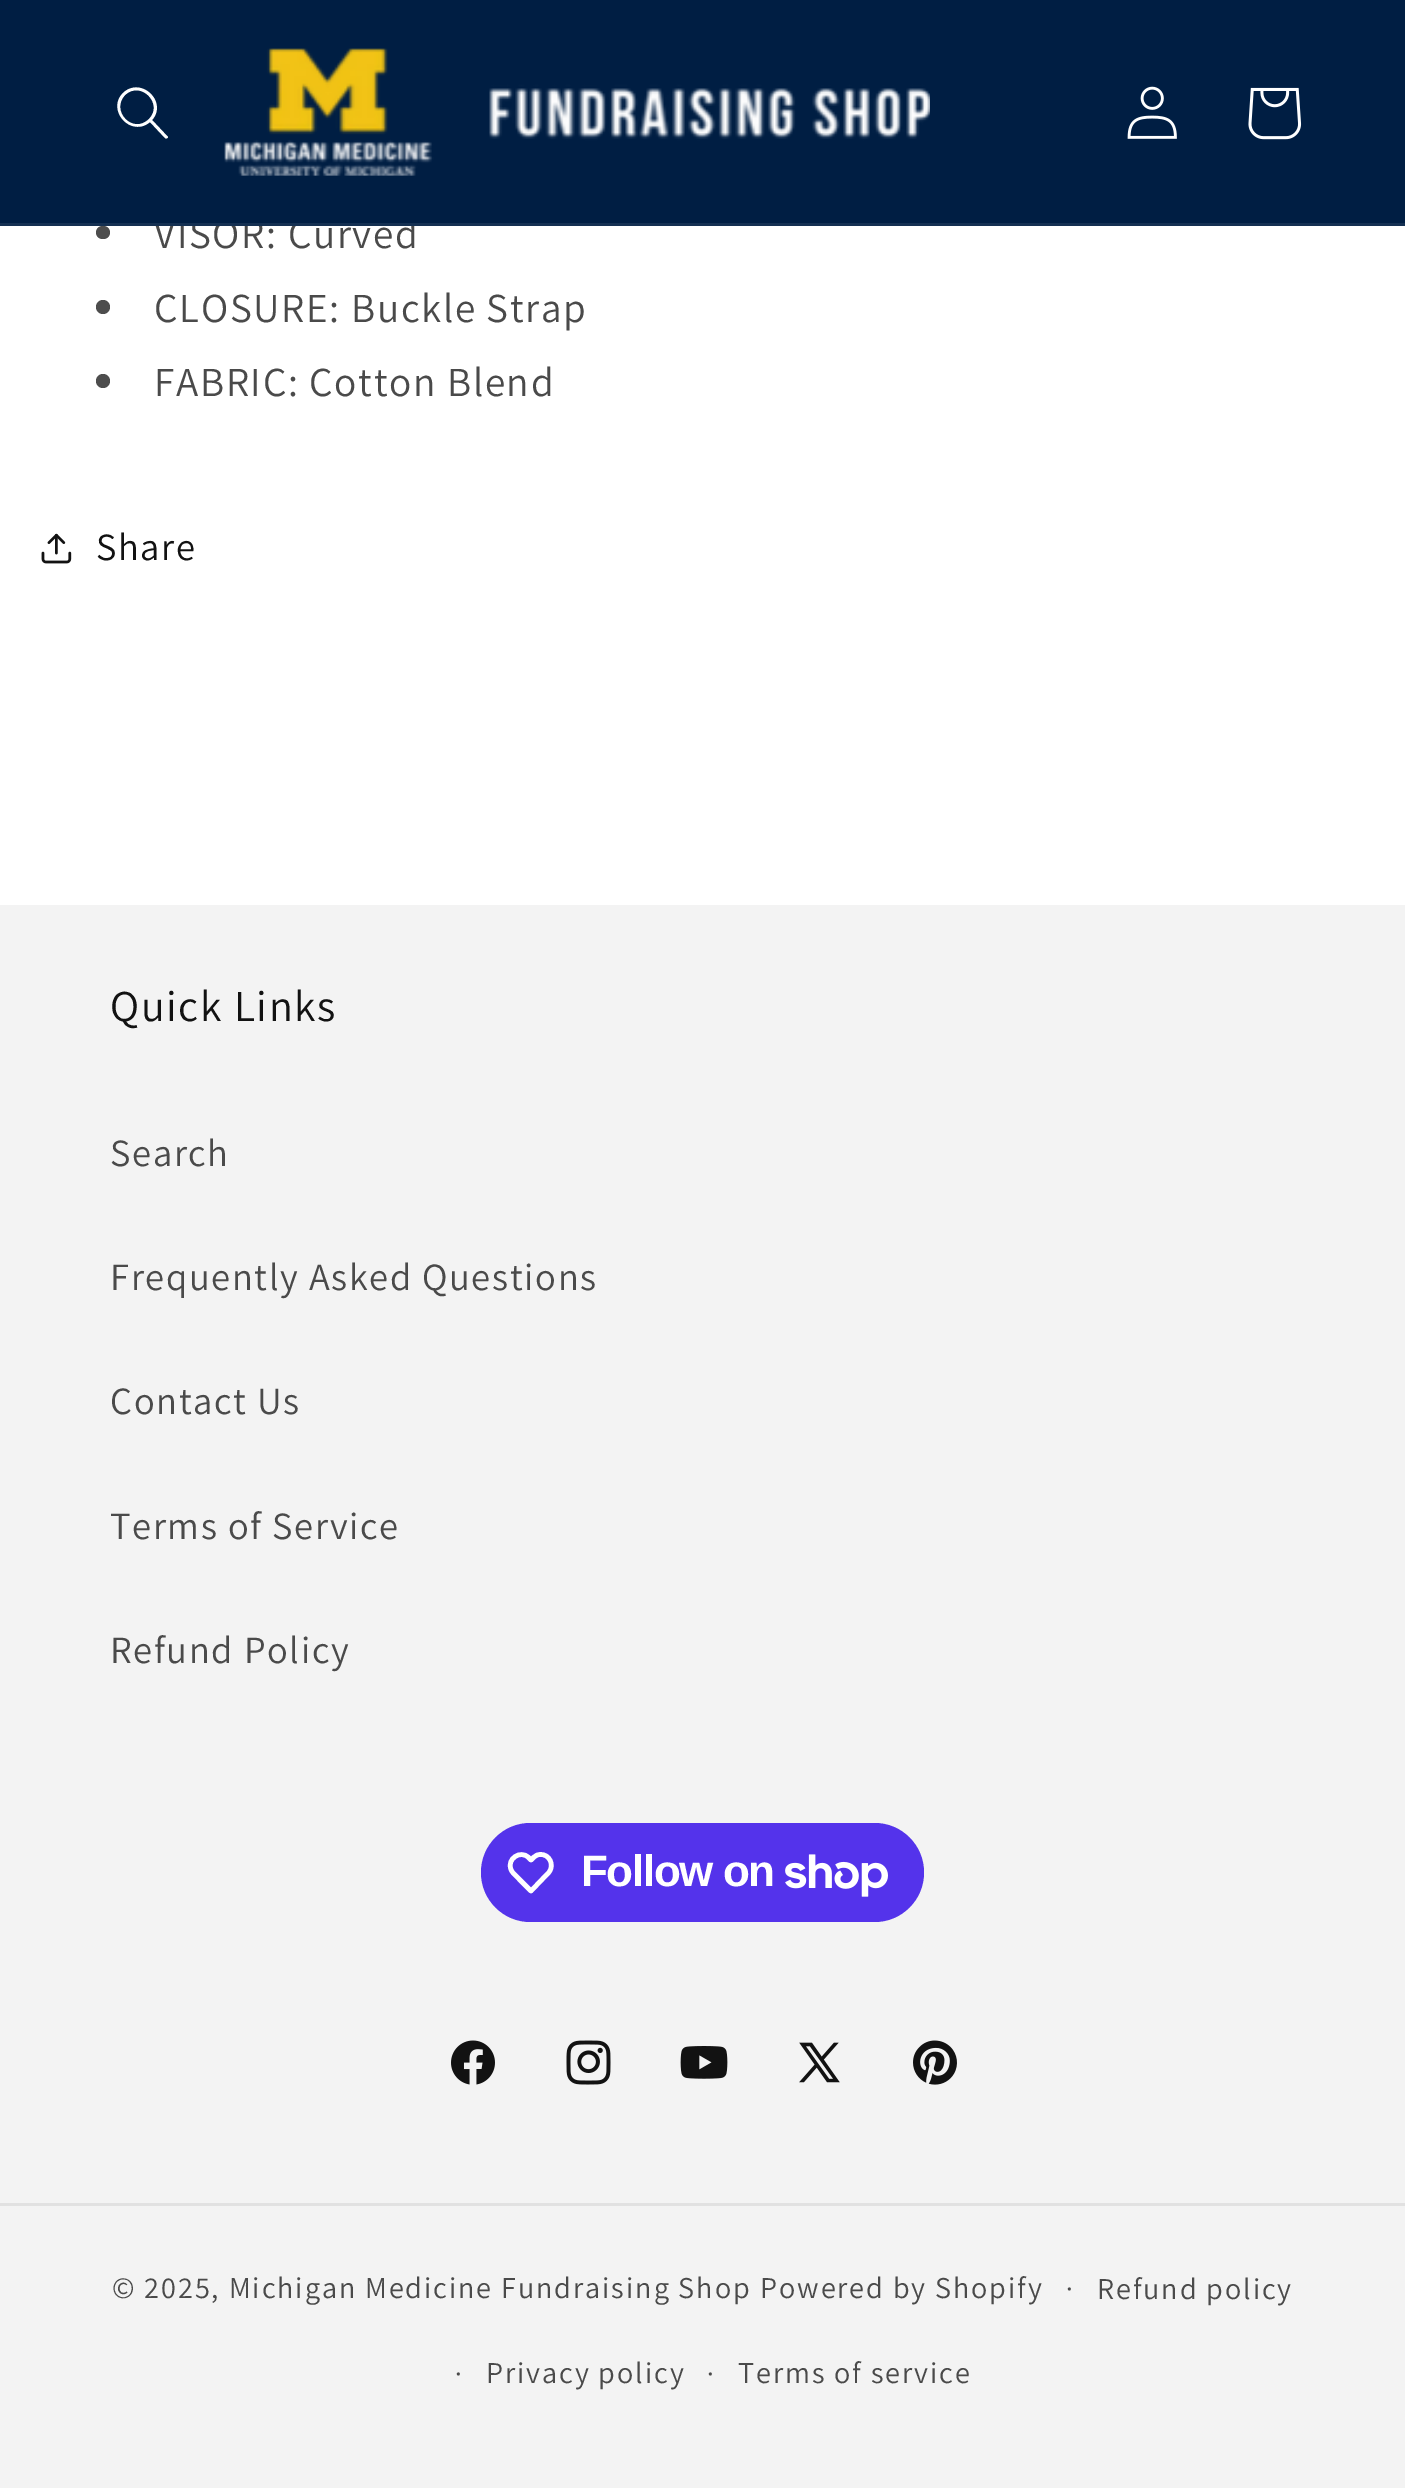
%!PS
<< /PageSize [1405 2488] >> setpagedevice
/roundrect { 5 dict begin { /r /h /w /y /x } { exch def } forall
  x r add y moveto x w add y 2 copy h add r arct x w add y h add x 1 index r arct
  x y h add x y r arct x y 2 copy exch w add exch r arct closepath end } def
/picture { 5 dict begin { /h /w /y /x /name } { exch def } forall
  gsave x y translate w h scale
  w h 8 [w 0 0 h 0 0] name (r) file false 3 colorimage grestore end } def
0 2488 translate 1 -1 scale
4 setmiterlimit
1 setgray
0 0 1405 2488 rectfill
/Assistant-Regular [41.25 0 0 -41.25 0 0] selectfont
0.29 setgray
154 248 moveto 1.65 0 (VISOR: Curved) ashow
0 0.118 0.263 setrgbcolor
0 0 1405 223 rectfill
0.078 0.188 0.322 setrgbcolor
0 223 1405 3 rectfill
1 setgray
newpath 149 119 moveto 133 135 110 111 125 95 curveto 141 80 164 104 149 119 curveto 150 122 moveto 131 138 106 110 123 93 curveto 141 76 168 102 152 120 curveto 168 137 lineto 168 138 166 139 165 138 curveto closepath eofill
(img1.rgb) 224 48 706 128 picture
(img2.rgb) 1127 86 50 53 picture
(img3.rgb) 1248 87 54 53 picture
0.302 setgray
96 226 14 13 6.5 roundrect fill
newpath 103 307 7 0 360 arc closepath fill
0.29 setgray
154 322 moveto 1.65 0 (CLOSURE: Buckle Strap) ashow
0.302 setgray
newpath 103 381 7 0 360 arc closepath fill
0.29 setgray
154 396 moveto 1.65 0 (FABRIC: Cotton Blend) ashow
(img4.rgb) 41 533 31 31 picture
/Assistant-Regular [38.5 0 0 -38.5 0 0] selectfont
0.071 setgray
96 560 moveto 1.65 0 (Share) ashow
0.953 setgray
0 905 1405 1583 rectfill
/Assistant-Regular [44 0 0 -44 0 0] selectfont
0.071 setgray
110 1021 moveto 1.65 0 (Quick Links) ashow
/Assistant-Regular [38.5 0 0 -38.5 0 0] selectfont
0.29 setgray
110 1166 moveto 1.65 0 (Search) ashow
110 1290 moveto 1.65 0 (Frequently Asked Questions) ashow
110 1414 moveto 1.65 0 (Contact Us) ashow
110 1539 moveto 1.65 0 (Terms of Service) ashow
110 1663 moveto 1.65 0 (Refund Policy) ashow
0.329 0.2 0.922 setrgbcolor
481 1823 443 99 49.5 roundrect fill
1 setgray
4.6 setlinewidth
1 setlinejoin
newpath 528.5 1857.5 moveto 531 1860 lineto 533 1858 534.5 1856 537.5 1855 curveto 546 1852 554 1861 550.5 1869.5 curveto 549 1873.5 545 1876 542.5 1879 curveto 531 1891 lineto 519 1879 lineto 516.5 1876 512.5 1873.5 511 1869.5 curveto 506.5 1859 520.5 1849.5 528.5 1857.5 curveto closepath stroke
/LiberationSans-Bold [44 0 0 -44 0 0] selectfont
581 1886 moveto -1.4 0 (Follow on) ashow
(img5.rgb) 785 1854 103 43 picture
(img6.rgb) 451 2040 44 45 picture
(img7.rgb) 566 2040 45 45 picture
(img8.rgb) 680 2046 48 33 picture
(img9.rgb) 799 2042 41 41 picture
(img10.rgb) 913 2040 44 45 picture
0.882 setgray
0 2203 1405 3 rectfill
/Assistant-Regular [30.25 0 0 -30.25 0 0] selectfont
0.29 setgray
112 2298 moveto 1.9 0 (© 2025, Michigan Medicine Fundraising Shop) ashow
760 2298 moveto 1.9 0 (Powered by Shopify) ashow
/Assistant-Regular [28 0 0 -28 0 0] selectfont
1066 2298 moveto 1.9 0 (·) ashow
/Assistant-Regular [30.25 0 0 -30.25 0 0] selectfont
1097 2299 moveto 1.9 0 (Refund policy) ashow
/Assistant-Regular [28 0 0 -28 0 0] selectfont
455 2383 moveto 1.9 0 (·) ashow
/Assistant-Regular [30.25 0 0 -30.25 0 0] selectfont
486 2383 moveto 1.9 0 (Privacy policy) ashow
/Assistant-Regular [28 0 0 -28 0 0] selectfont
707 2383 moveto 1.9 0 (·) ashow
/Assistant-Regular [30.25 0 0 -30.25 0 0] selectfont
738 2383 moveto 1.9 0 (Terms of service) ashow
showpage
